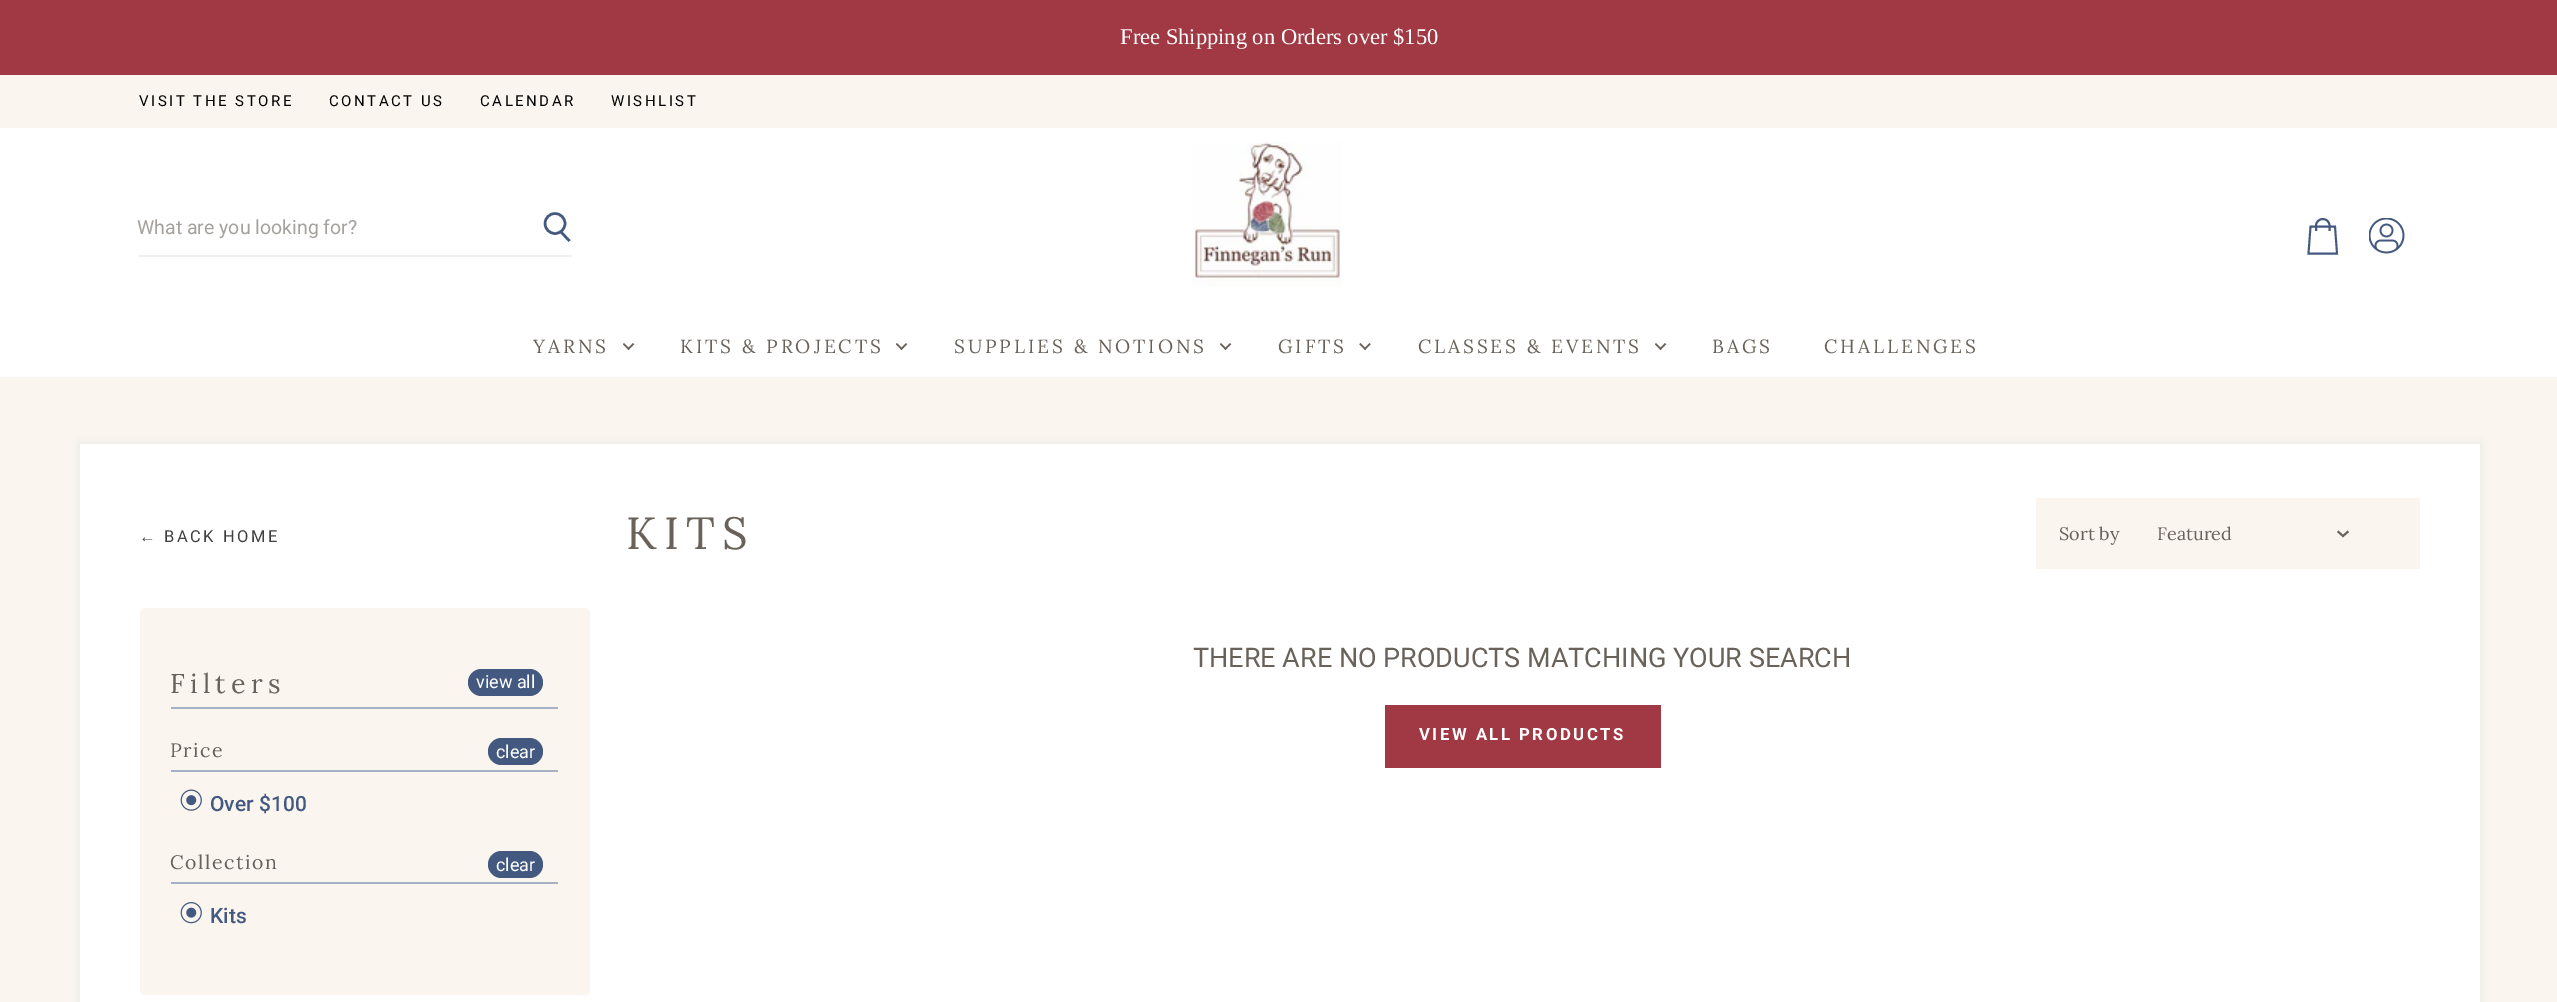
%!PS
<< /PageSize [2557 1002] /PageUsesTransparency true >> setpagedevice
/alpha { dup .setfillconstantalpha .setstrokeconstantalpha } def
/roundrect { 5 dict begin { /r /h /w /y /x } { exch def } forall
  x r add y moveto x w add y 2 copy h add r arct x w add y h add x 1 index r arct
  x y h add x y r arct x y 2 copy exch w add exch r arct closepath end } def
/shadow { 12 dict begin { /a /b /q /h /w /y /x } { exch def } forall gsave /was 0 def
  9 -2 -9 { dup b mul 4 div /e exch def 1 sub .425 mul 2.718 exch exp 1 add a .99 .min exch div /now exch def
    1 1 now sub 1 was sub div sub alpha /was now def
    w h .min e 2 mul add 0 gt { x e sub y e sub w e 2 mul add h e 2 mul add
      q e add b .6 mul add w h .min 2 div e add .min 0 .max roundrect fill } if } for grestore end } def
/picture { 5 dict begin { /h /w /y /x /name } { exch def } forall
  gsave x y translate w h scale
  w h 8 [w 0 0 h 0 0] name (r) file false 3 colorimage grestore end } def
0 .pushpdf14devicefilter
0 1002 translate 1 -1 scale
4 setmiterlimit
0.98 0.961 0.937 setrgbcolor
0 0 2557 1002 rectfill
0.631 0.224 0.267 setrgbcolor
0 0 2557 75 rectfill
/LiberationSerif-Regular [22.5 0 0 -22.5 0 0] selectfont
1 setgray
1120 44 moveto (Free Shipping on Orders over $150) show
/Roboto-Regular [15 0 0 -15 0 0] selectfont
0 setgray
139 106 moveto 2.5 0 (VISIT THE STORE) ashow
329 106 moveto 2.5 0 (CONTACT US) ashow
480 106 moveto 2.5 0 (CALENDAR) ashow
611 106 moveto 2.5 0 (WISHLIST) ashow
1 setgray
0 128 2557 249 rectfill
0.929 0.937 0.945 setrgbcolor
138 255 434 2 rectfill
0.263 0.349 0.502 setrgbcolor
2.5 setlinewidth
newpath 569.5 241 moveto 561 232 lineto stroke
newpath 555 223.5 10 0 360 arc closepath stroke
/Roboto-Regular [19.5 0 0 -19.5 0 0] selectfont
0.647 0.631 0.612 setrgbcolor
137 234 moveto (What are you looking for?) show
(img1.rgb) 1192 142 149 145 picture
0.263 0.349 0.502 setrgbcolor
1.9 setlinewidth
newpath 2337 253.5 moveto 2308.5 253.5 lineto 2310.5 226.5 lineto 2335 226.5 lineto closepath 2329.5 231 moveto 2329.5 225.5 lineto 2329.5 222 2326.5 219 2323 219 curveto 2319 219 2316 222 2316 225.5 curveto 2316 231 lineto stroke
(img2.rgb) 2369 218 36 36 picture
/Lora-Regular [19.1 0 0 -19.1 0 0] selectfont
0.412 0.384 0.353 setrgbcolor
533 353 moveto 2.9 0 (YARNS) ashow
(img3.rgb) 623 343 12 7 picture
680 353 moveto 2.9 0 (KITS & PROJECTS) ashow
(img3.rgb) 896 343 12 7 picture
954 353 moveto 2.9 0 (SUPPLIES & NOTIONS) ashow
(img3.rgb) 1220 343 12 7 picture
1278 353 moveto 2.9 0 (GIFTS) ashow
(img4.rgb) 1359 343 12 7 picture
1418 353 moveto 2.9 0 (CLASSES & EVENTS) ashow
(img3.rgb) 1655 343 12 7 picture
1712 353 moveto 2.9 0 (BAGS) ashow
1824 353 moveto 2.9 0 (CHALLENGES) ashow
0.647 0.694 0.769 setrgbcolor
77 441 2406 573 0 4 0.14 shadow
1 setgray
80 444 2400 558 rectfill
/LiberationSans-Regular [16.5 0 0 -16.5 0 0] selectfont
0.251 setgray
139 542 moveto 2.5 0 (←) ashow
/Roboto-Regular [16.5 0 0 -16.5 0 0] selectfont
164 542 moveto 2.5 0 (BACK HOME) ashow
/Lora-Regular [45 0 0 -45 0 0] selectfont
0.412 0.384 0.353 setrgbcolor
626 549 moveto 7 0 (KITS) ashow
0.98 0.961 0.937 setrgbcolor
2036 498 384 71 rectfill
/Lora-Regular [18 0 0 -18 0 0] selectfont
0.412 0.384 0.353 setrgbcolor
2059 540 moveto (Sort by) show
2157 540 moveto (Featured) show
2 setlinecap
newpath 2343 536 moveto 2347.5 532 lineto 2343 536 moveto 2338.5 532 lineto stroke
/Roboto-Regular [27 0 0 -27 0 0] selectfont
1193 667 moveto (THERE ARE NO PRODUCTS MATCHING YOUR SEARCH) show
0.631 0.224 0.267 setrgbcolor
1385 705 276 63 rectfill
/Roboto-Bold [16.75 0 0 -16.75 0 0] selectfont
1 setgray
1419 740 moveto 2.5 0 (VIEW ALL PRODUCTS) ashow
0.98 0.961 0.937 setrgbcolor
140 608 450 387 5 roundrect fill
0.647 0.694 0.769 setrgbcolor
171 707 387 2 rectfill
/Lora-Regular [27 0 0 -27 0 0] selectfont
0.412 0.384 0.353 setrgbcolor
170 693 moveto 5.25 0 (Filters) ashow
0.263 0.349 0.502 setrgbcolor
468 669 75 27 13.5 roundrect fill
/Roboto-Regular [18 0 0 -18 0 0] selectfont
1 setgray
476 688 moveto (view all) show
0.647 0.694 0.769 setrgbcolor
171 770 387 2 rectfill
/Lora-Regular [19.5 0 0 -19.5 0 0] selectfont
0.412 0.384 0.353 setrgbcolor
170 757 moveto 1.5 0 (Price) ashow
0.263 0.349 0.502 setrgbcolor
488 738 55 27 13.5 roundrect fill
/Roboto-Regular [18 0 0 -18 0 0] selectfont
1 setgray
496 758 moveto (clear) show
(img5.rgb) 180 789 22 22 picture
/Roboto-Medium [21 0 0 -21 0 0] selectfont
0.263 0.349 0.502 setrgbcolor
210 811 moveto (Over $100) show
0.647 0.694 0.769 setrgbcolor
171 882 387 2 rectfill
/Lora-Regular [19.5 0 0 -19.5 0 0] selectfont
0.412 0.384 0.353 setrgbcolor
170 869 moveto 1.5 0 (Collection) ashow
0.263 0.349 0.502 setrgbcolor
488 851 55 27 13.5 roundrect fill
/Roboto-Regular [18 0 0 -18 0 0] selectfont
1 setgray
496 871 moveto (clear) show
(img6.rgb) 180 902 22 22 picture
/Roboto-Medium [21 0 0 -21 0 0] selectfont
0.263 0.349 0.502 setrgbcolor
210 923 moveto (Kits) show
.poppdf14devicefilter showpage
